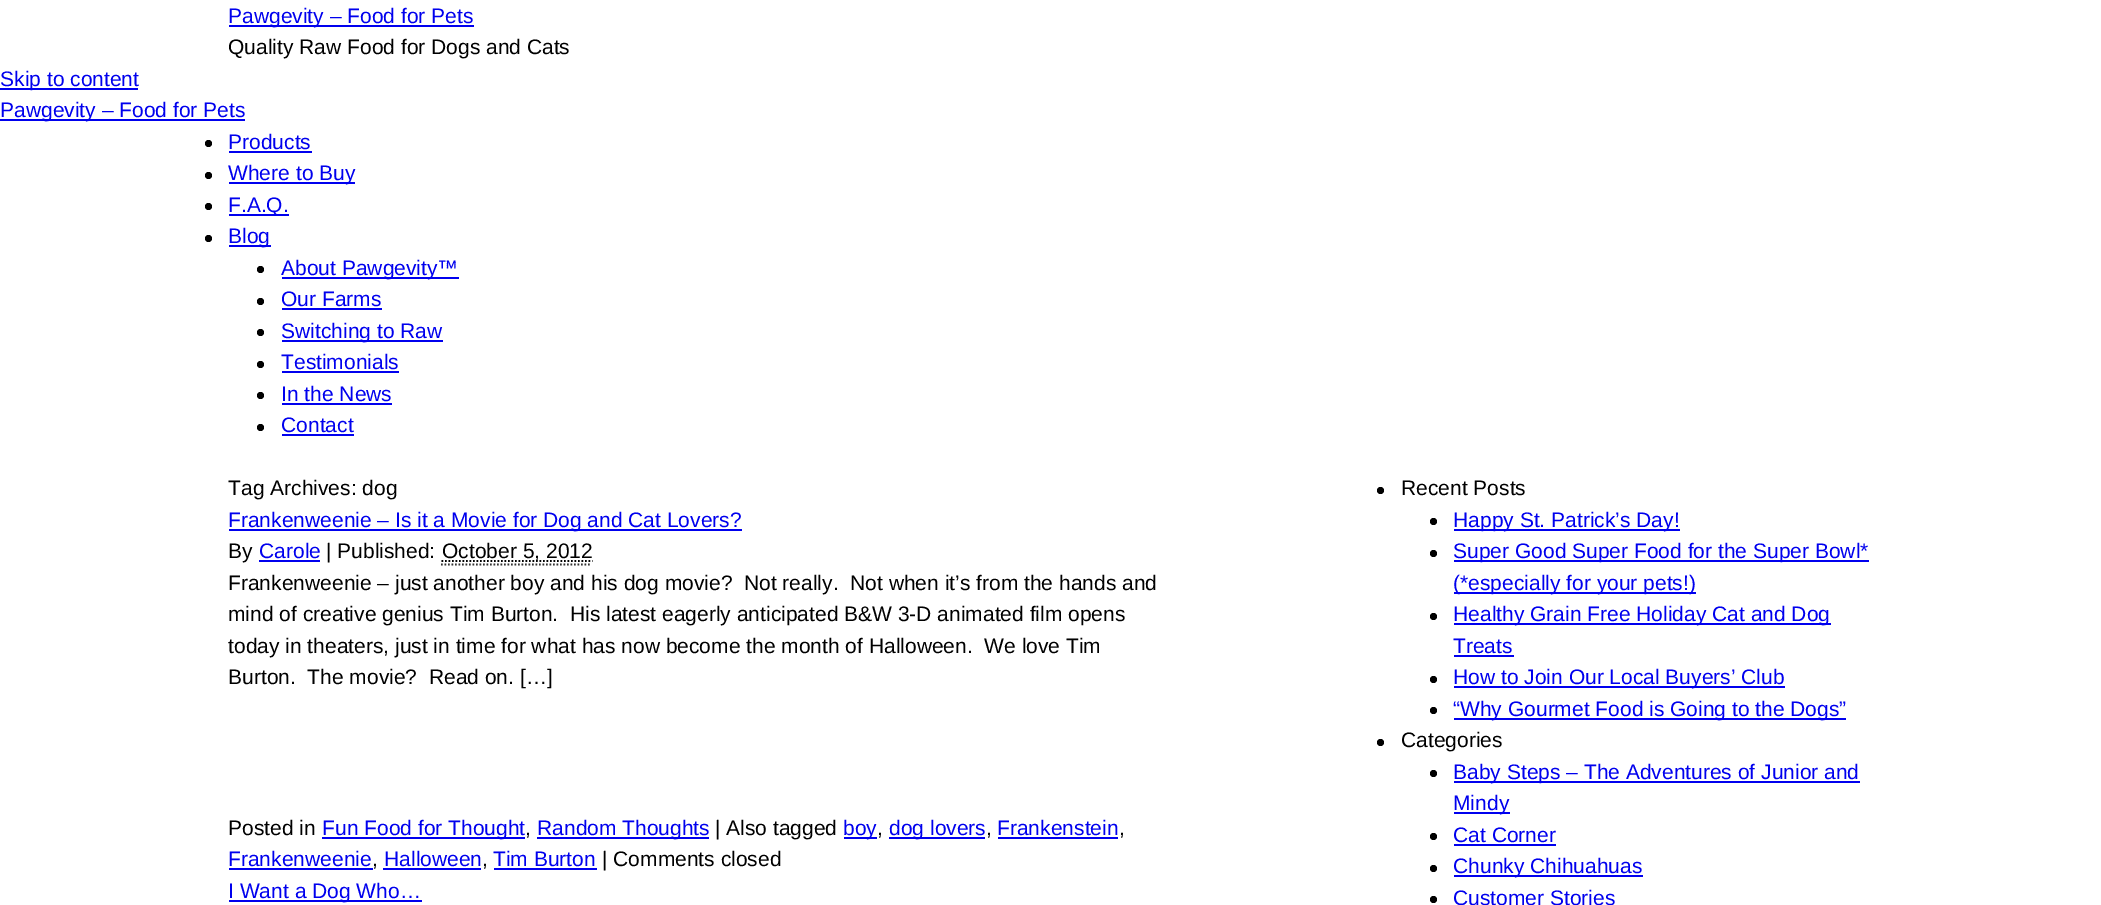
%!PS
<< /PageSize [2101 905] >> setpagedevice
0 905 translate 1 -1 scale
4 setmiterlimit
1 setgray
0 0 2101 905 rectfill
0 0 0.933 setrgbcolor
229 25 245 2 rectfill
/LiberationSans-Regular [21 0 0 -21 0 0] selectfont
228 23 moveto (Pawgevity – Food for Pets) show
0 setgray
228 54 moveto (Quality Raw Food for Dogs and Cats) show
0 0 0.933 setrgbcolor
0 88 138 2 rectfill
0 86 moveto (Skip to content) show
0 119 245 2 rectfill
0 117 moveto (Pawgevity – Food for Pets) show
0 setgray
newpath 208.5 143.5 3.5 0 360 arc closepath fill
0 0 0.933 setrgbcolor
228 149 moveto (Products) show
229 151 83 2 rectfill
0 setgray
newpath 208.5 175.5 3.5 0 360 arc closepath fill
0 0 0.933 setrgbcolor
229 182 126 2 rectfill
228 180 moveto (Where to Buy) show
0 setgray
newpath 208.5 206.5 3.5 0 360 arc closepath fill
0 0 0.933 setrgbcolor
229 214 60 2 rectfill
228 212 moveto (F.A.Q.) show
0 setgray
newpath 208.5 238.5 3.5 0 360 arc closepath fill
0 0 0.933 setrgbcolor
229 245 42 2 rectfill
228 243 moveto (Blog) show
0 setgray
newpath 260.5 269.5 3.5 0 360 arc closepath fill
0 0 0.933 setrgbcolor
282 277 177 2 rectfill
281 275 moveto (About Pawgevity™) show
0 setgray
newpath 260.5 301.5 3.5 0 360 arc closepath fill
0 0 0.933 setrgbcolor
281 306 moveto (Our Farms) show
282 308 100 2 rectfill
0 setgray
newpath 260.5 332.5 3.5 0 360 arc closepath fill
0 0 0.933 setrgbcolor
282 340 161 2 rectfill
281 338 moveto (Switching to Raw) show
0 setgray
newpath 260.5 364.5 3.5 0 360 arc closepath fill
0 0 0.933 setrgbcolor
281 369 moveto (Testimonials) show
282 371 117 2 rectfill
0 setgray
newpath 260.5 395.5 3.5 0 360 arc closepath fill
0 0 0.933 setrgbcolor
281 401 moveto (In the News) show
282 403 110 2 rectfill
0 setgray
newpath 260.5 427.5 3.5 0 360 arc closepath fill
0 0 0.933 setrgbcolor
281 432 moveto (Contact) show
282 434 72 2 rectfill
0 setgray
228 495 moveto (Tag Archives: dog) show
0 0 0.933 setrgbcolor
229 529 513 2 rectfill
228 527 moveto (Frankenweenie – Is it a Movie for Dog and Cat Lovers?) show
0 setgray
228 558 moveto (By) show
0 0 0.933 setrgbcolor
259 558 moveto (Carole) show
259 560 61 2 rectfill
0 setgray
326 558 moveto (| Published:) show
1.8 setlinewidth
[1.75 1.75] 0 setdash
newpath 441.5 561 moveto 592.5 561 lineto stroke
442 558 moveto (October 5, 2012) show
0.2 setgray
newpath 441 564.5 moveto 591.5 564.5 lineto stroke
0 setgray
228 590 moveto (Frankenweenie – just another boy and his dog movie?  Not really.  Not when it’s from the hands and) show
228 621 moveto (mind of creative genius Tim Burton.  His latest eagerly anticipated B&W 3-D animated film opens) show
228 653 moveto (today in theaters, just in time for what has now become the month of Halloween.  We love Tim) show
228 684 moveto (Burton.  The movie?  Read on. […]) show
228 835 moveto (Posted in) show
0 0 0.933 setrgbcolor
322 837 203 2 rectfill
322 835 moveto (Fun Food for Thought) show
0 setgray
525 835 moveto (,) show
0 0 0.933 setrgbcolor
537 837 172 2 rectfill
537 835 moveto (Random Thoughts) show
0 setgray
715 835 moveto (| Also tagged) show
0 0 0.933 setrgbcolor
844 837 33 2 rectfill
843 835 moveto (boy) show
0 setgray
877 835 moveto (,) show
0 0 0.933 setrgbcolor
889 837 96 2 rectfill
889 835 moveto (dog lovers) show
0 setgray
986 835 moveto (,) show
0 0 0.933 setrgbcolor
997 835 moveto (Frankenstein) show
0 setgray
1119 835 moveto (,) show
0 0 0.933 setrgbcolor
998 837 120 2 rectfill
228 866 moveto (Frankenweenie) show
0 setgray
372 866 moveto (,) show
0 0 0.933 setrgbcolor
229 868 144 2 rectfill
384 866 moveto (Halloween) show
0 setgray
482 866 moveto (,) show
0 0 0.933 setrgbcolor
383 868 98 2 rectfill
494 868 103 2 rectfill
493 866 moveto (Tim Burton) show
0 setgray
602 866 moveto (| Comments closed) show
0 0 0.933 setrgbcolor
229 900 193 2 rectfill
228 898 moveto (I Want a Dog Who…) show
0 setgray
newpath 1380.5 490.5 3.5 0 360 arc closepath fill
1401 495 moveto (Recent Posts) show
newpath 1433.5 521.5 3.5 0 360 arc closepath fill
0 0 0.933 setrgbcolor
1454 529 226 2 rectfill
1453 527 moveto (Happy St. Patrick’s Day!) show
0 setgray
newpath 1433.5 553.5 3.5 0 360 arc closepath fill
0 0 0.933 setrgbcolor
1454 560 415 2 rectfill
1453 558 moveto (Super Good Super Food for the Super Bowl*) show
1454 592 242 2 rectfill
1453 590 moveto (\(*especially for your pets!\)) show
0 setgray
newpath 1433.5 616.5 3.5 0 360 arc closepath fill
0 0 0.933 setrgbcolor
1454 623 377 2 rectfill
1453 621 moveto (Healthy Grain Free Holiday Cat and Dog) show
1453 653 moveto (Treats) show
1454 655 60 2 rectfill
0 setgray
newpath 1433.5 679.5 3.5 0 360 arc closepath fill
0 0 0.933 setrgbcolor
1454 686 331 2 rectfill
1453 684 moveto (How to Join Our Local Buyers’ Club) show
0 setgray
newpath 1433.5 710.5 3.5 0 360 arc closepath fill
0 0 0.933 setrgbcolor
1454 718 392 2 rectfill
1453 716 moveto (“Why Gourmet Food is Going to the Dogs”) show
0 setgray
newpath 1380.5 742.5 3.5 0 360 arc closepath fill
1401 747 moveto (Categories) show
newpath 1433.5 773.5 3.5 0 360 arc closepath fill
0 0 0.933 setrgbcolor
1454 781 406 2 rectfill
1453 779 moveto (Baby Steps – The Adventures of Junior and) show
1454 812 56 2 rectfill
1453 810 moveto (Mindy) show
0 setgray
newpath 1433.5 836.5 3.5 0 360 arc closepath fill
0 0 0.933 setrgbcolor
1453 842 moveto (Cat Corner) show
1454 844 102 2 rectfill
0 setgray
newpath 1433.5 868.5 3.5 0 360 arc closepath fill
0 0 0.933 setrgbcolor
1454 875 189 2 rectfill
1453 873 moveto (Chunky Chihuahuas) show
0 setgray
newpath 1433.5 899.5 3.5 0 360 arc closepath fill
0 0 0.933 setrgbcolor
1453 905 moveto (Customer Stories) show
showpage
